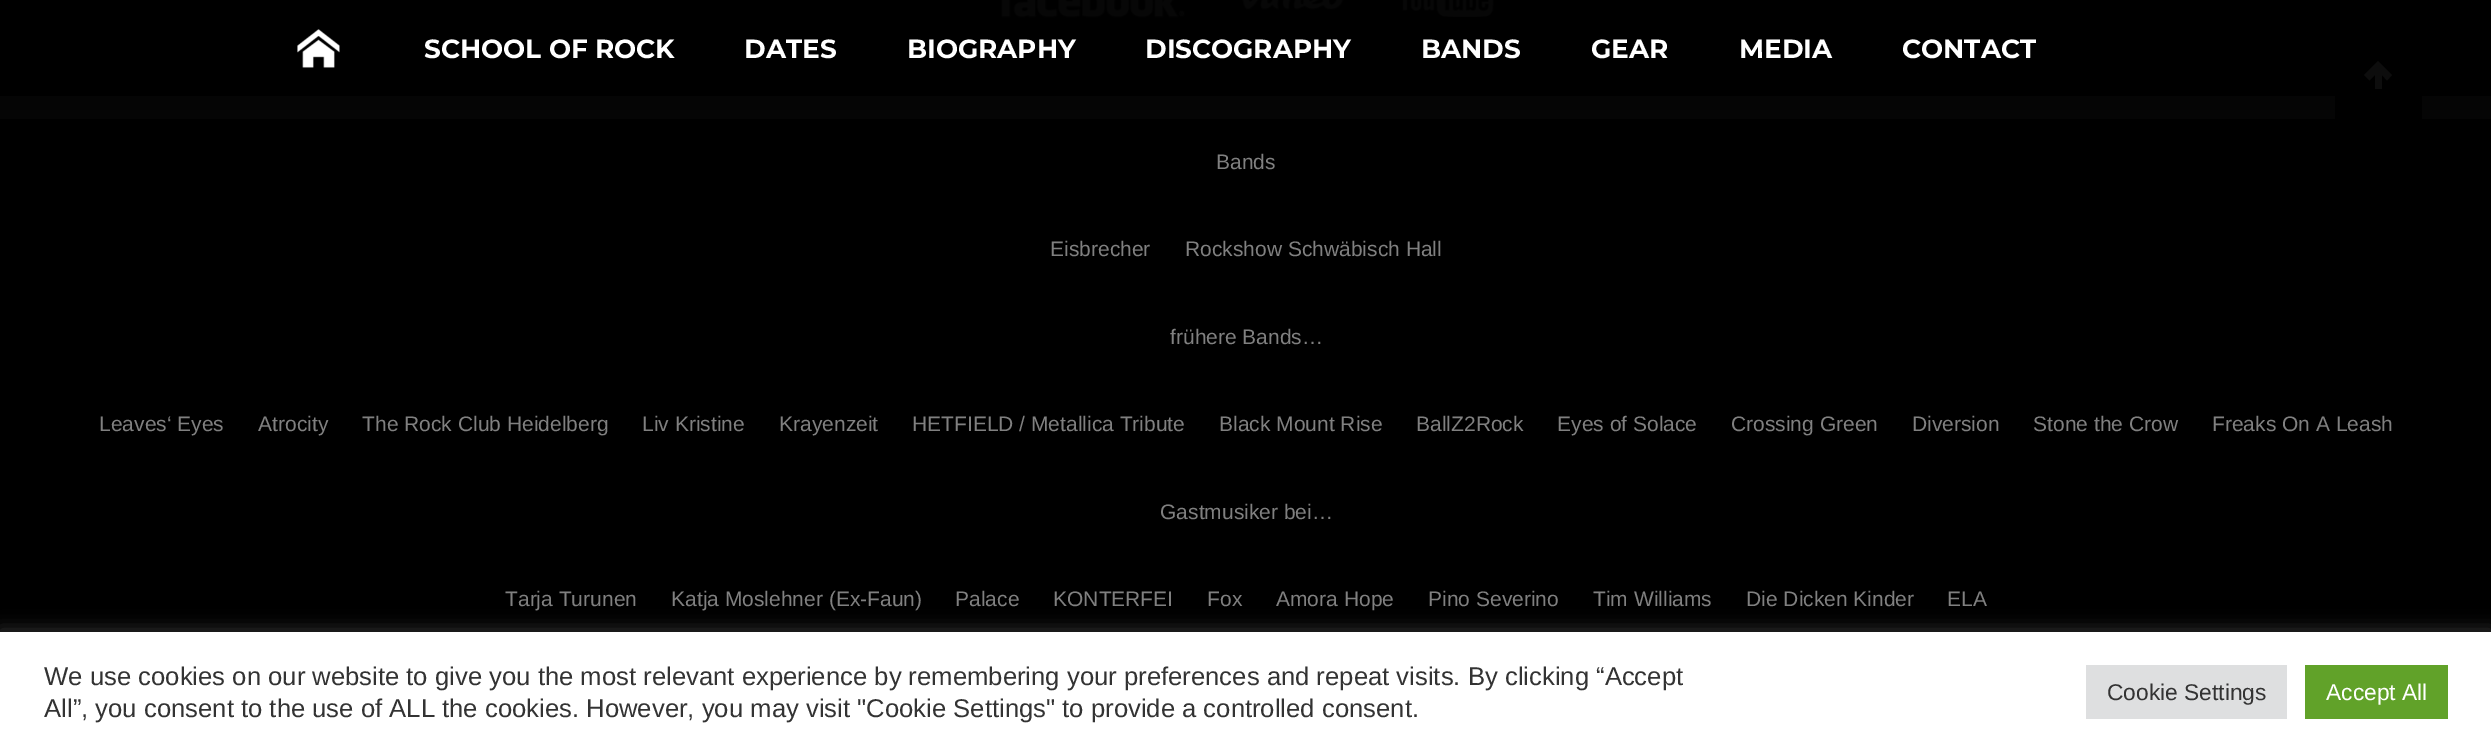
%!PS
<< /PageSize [2491 752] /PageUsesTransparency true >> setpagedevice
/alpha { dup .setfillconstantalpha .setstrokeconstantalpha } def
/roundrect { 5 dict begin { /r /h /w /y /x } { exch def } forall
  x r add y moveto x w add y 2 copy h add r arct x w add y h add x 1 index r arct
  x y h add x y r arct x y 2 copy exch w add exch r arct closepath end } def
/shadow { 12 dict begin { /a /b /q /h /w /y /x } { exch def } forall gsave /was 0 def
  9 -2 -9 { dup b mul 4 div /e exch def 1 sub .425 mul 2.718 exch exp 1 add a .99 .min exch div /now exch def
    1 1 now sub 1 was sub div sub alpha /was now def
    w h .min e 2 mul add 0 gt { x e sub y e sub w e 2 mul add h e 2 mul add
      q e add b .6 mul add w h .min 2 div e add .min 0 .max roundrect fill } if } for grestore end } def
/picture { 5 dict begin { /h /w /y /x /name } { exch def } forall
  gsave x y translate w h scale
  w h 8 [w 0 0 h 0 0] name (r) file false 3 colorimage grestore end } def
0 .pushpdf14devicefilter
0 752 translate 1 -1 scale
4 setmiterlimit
0 setgray
0 0 2491 752 rectfill
0.02 setgray
0 0 2491 119 rectfill
0 setgray
newpath 2340 32 moveto 2417 32 lineto 2420 32 2422 34 2422 37 curveto 2422 119 lineto 2335 119 lineto 2335 37 lineto 2335 34 2337 32 2340 32 curveto closepath fill
1 setgray
newpath 2382 89 moveto 2375 89 lineto 2375 75 lineto 2369.5 80.5 lineto 2364 75 lineto 2378 61 lineto 2392 75 lineto 2387 80.5 lineto 2382 75 lineto closepath fill
(img2.rgb) 1001 0 184 18 picture
(img3.rgb) 1242 0 102 10 picture
(img4.rgb) 1402 0 92 17 picture
0.95 alpha
0 setgray
0 0 2491 96 rectfill
1 alpha
(img1.rgb) 297 29 43 39 picture
/Montserrat-Bold [26.25 0 0 -26.25 0 0] selectfont
1 setgray
424 58 moveto (SCHOOL OF ROCK) show
744 58 moveto (DATES) show
907 58 moveto (BIOGRAPHY) show
1145 58 moveto (DISCOGRAPHY) show
1421 58 moveto (BANDS) show
1591 58 moveto (GEAR) show
1739 58 moveto (MEDIA) show
1902 58 moveto (CONTACT) show
/LiberationSans-Regular [21 0 0 -21 0 0] selectfont
0.502 setgray
1216 169 moveto (Bands) show
1050 256 moveto (Eisbrecher) show
1185 256 moveto (Rockshow Schwäbisch Hall) show
1170 344 moveto (frühere Bands…) show
99 431 moveto (Leaves‘ Eyes) show
258 431 moveto (Atrocity) show
362 431 moveto (The Rock Club Heidelberg) show
642 431 moveto (Liv Kristine) show
779 431 moveto (Krayenzeit) show
912 431 moveto (HETFIELD / Metallica Tribute) show
1219 431 moveto (Black Mount Rise) show
1416 431 moveto (BallZ2Rock) show
1557 431 moveto (Eyes of Solace) show
1731 431 moveto (Crossing Green) show
1912 431 moveto (Diversion) show
2033 431 moveto (Stone the Crow) show
2212 431 moveto (Freaks On A Leash) show
1160 519 moveto (Gastmusiker bei…) show
505 606 moveto (Tarja Turunen) show
671 606 moveto (Katja Moslehner \(Ex-Faun\)) show
955 606 moveto (Palace) show
1053 606 moveto (KONTERFEI) show
1207 606 moveto (Fox) show
1276 606 moveto (Amora Hope) show
1428 606 moveto (Pino Severino) show
1593 606 moveto (Tim Williams) show
1746 606 moveto (Die Dicken Kinder) show
1947 606 moveto (ELA) show
0.675 0.671 0.671 setrgbcolor
0 630 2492 121 0 9 0.3 shadow
1 setgray
0 632 2491 120 rectfill
/LiberationSans-Regular [25.67 0 0 -25.67 0 0] selectfont
0.2 setgray
44 685 moveto (We use cookies on our website to give you the most relevant experience by remembering your preferences and repeat visits. By clicking “Accept) show
44 717 moveto (All”, you consent to the use of ALL the cookies. However, you may visit "Cookie Settings" to provide a controlled consent.) show
0.871 0.875 0.878 setrgbcolor
2086 665 201 54 rectfill
/LiberationSans-Regular [22.75 0 0 -22.75 0 0] selectfont
0.2 setgray
2107 700 moveto (Cookie Settings) show
0.38 0.635 0.161 setrgbcolor
2305 665 143 54 rectfill
1 setgray
2326 700 moveto (Accept All) show
.poppdf14devicefilter showpage
